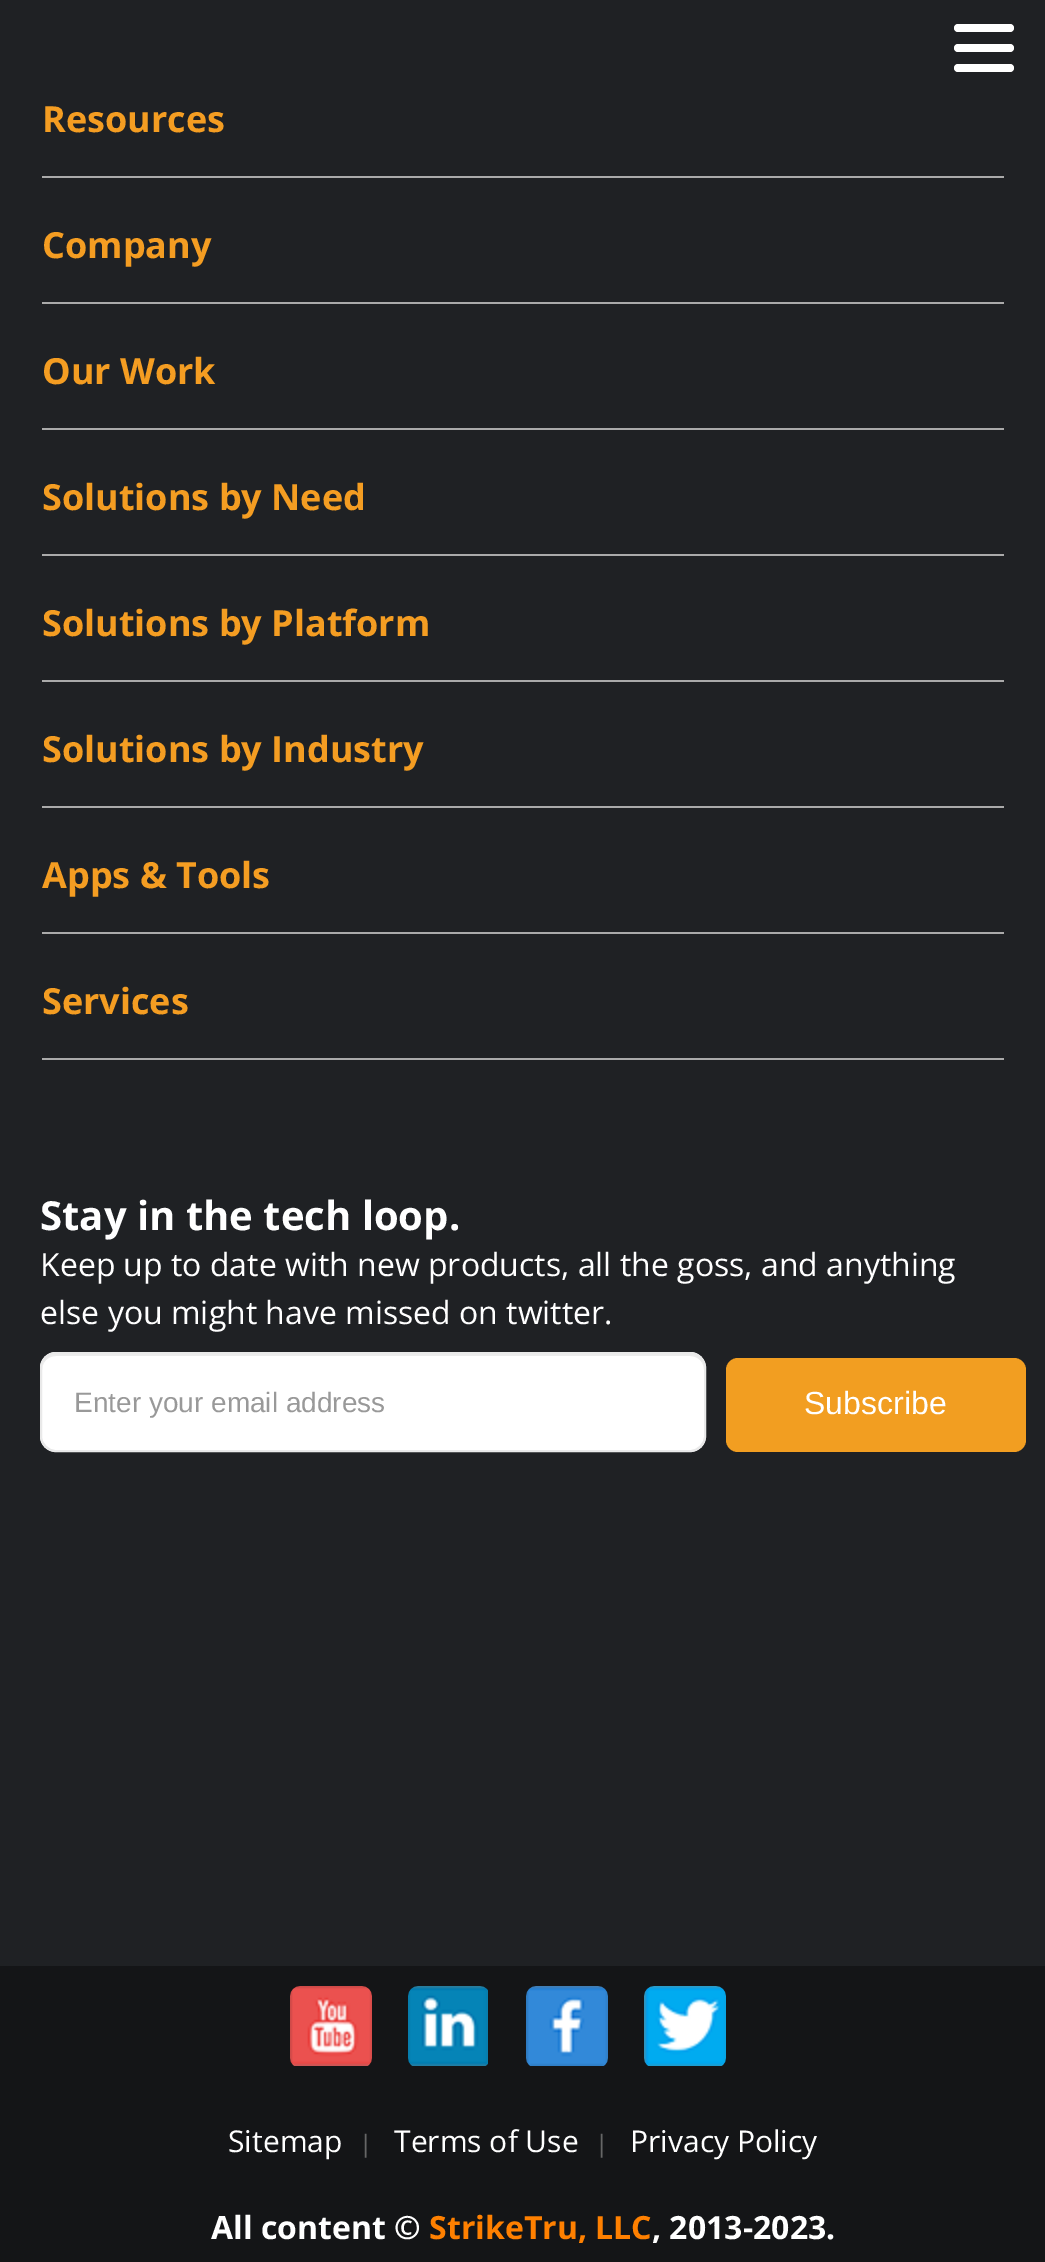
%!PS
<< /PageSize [1045 2262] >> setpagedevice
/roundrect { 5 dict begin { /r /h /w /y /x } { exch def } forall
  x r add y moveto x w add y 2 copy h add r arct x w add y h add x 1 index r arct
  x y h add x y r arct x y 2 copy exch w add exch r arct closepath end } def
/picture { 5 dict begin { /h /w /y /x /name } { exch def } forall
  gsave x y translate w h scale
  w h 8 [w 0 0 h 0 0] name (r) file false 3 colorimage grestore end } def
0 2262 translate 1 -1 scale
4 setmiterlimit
0.122 0.129 0.141 setrgbcolor
0 0 1045 2262 rectfill
1 setgray
954 24 60 8 4 roundrect fill
954 44 60 8 4 roundrect fill
954 64 60 8 4 roundrect fill
0.667 setgray
42 176 962 2 rectfill
/OpenSans-Bold [36 0 0 -36 0 0] selectfont
0.957 0.616 0.133 setrgbcolor
42 132 moveto (Resources) show
0.667 setgray
42 302 962 2 rectfill
0.957 0.616 0.133 setrgbcolor
42 258 moveto (Company) show
0.667 setgray
42 428 962 2 rectfill
0.957 0.616 0.133 setrgbcolor
42 384 moveto (Our Work) show
0.667 setgray
42 554 962 2 rectfill
0.957 0.616 0.133 setrgbcolor
42 510 moveto (Solutions by Need) show
0.667 setgray
42 680 962 2 rectfill
0.957 0.616 0.133 setrgbcolor
42 636 moveto (Solutions by Platform) show
0.667 setgray
42 806 962 2 rectfill
0.957 0.616 0.133 setrgbcolor
42 762 moveto (Solutions by Industry) show
0.667 setgray
42 932 962 2 rectfill
0.957 0.616 0.133 setrgbcolor
42 888 moveto (Apps & Tools) show
0.667 setgray
42 1058 962 2 rectfill
0.957 0.616 0.133 setrgbcolor
42 1014 moveto (Services) show
/OpenSans-Bold [40 0 0 -40 0 0] selectfont
1 setgray
40 1230 moveto (Stay in the tech loop.) show
/OpenSans-Regular [32 0 0 -32 0 0] selectfont
40 1276 moveto (Keep up to date with new products, all the goss, and anything) show
40 1324 moveto (else you might have missed on twitter.) show
40 1352 666 100 16 roundrect fill
0.925 setgray
newpath 56 1356 moveto 690 1356 lineto 698 1356 704 1362 704 1370 curveto 704 1362 699 1354 690 1354 curveto 56 1354 lineto 47 1354 42 1362 42 1370 curveto 42 1362 48 1356 56 1356 curveto closepath fill
0.914 setgray
2 setlinewidth
41 1353 664 98 15 roundrect stroke
/LiberationSans-Regular [28 0 0 -28 0 0] selectfont
0.6 setgray
74 1412 moveto (Enter your email address) show
0.949 0.62 0.129 setrgbcolor
726 1358 300 94 12 roundrect fill
/LiberationSans-Regular [32 0 0 -32 0 0] selectfont
1 setgray
804 1414 moveto (Subscribe) show
0.078 0.082 0.09 setrgbcolor
0 1966 1045 296 rectfill
(img1.rgb) 290 1986 82 80 picture
(img2.rgb) 408 1986 80 80 picture
(img3.rgb) 526 1986 82 80 picture
(img4.rgb) 644 1986 82 80 picture
/OpenSans-Regular [30 0 0 -30 0 0] selectfont
1 setgray
228 2152 moveto (Sitemap) show
/OpenSans-Regular [24 0 0 -24 0 0] selectfont
0.4 setgray
359 2152 moveto (|) show
/OpenSans-Regular [30 0 0 -30 0 0] selectfont
1 setgray
394 2152 moveto (Terms of Use) show
/OpenSans-Regular [24 0 0 -24 0 0] selectfont
0.4 setgray
595 2152 moveto (|) show
/OpenSans-Regular [30 0 0 -30 0 0] selectfont
1 setgray
630 2152 moveto (Privacy Policy) show
/OpenSans-Bold [32 0 0 -32 0 0] selectfont
211 2239 moveto (All content ©) show
1 0.502 0 setrgbcolor
429 2239 moveto (StrikeTru, LLC) show
1 setgray
652 2239 moveto (, 2013-2023.) show
showpage
